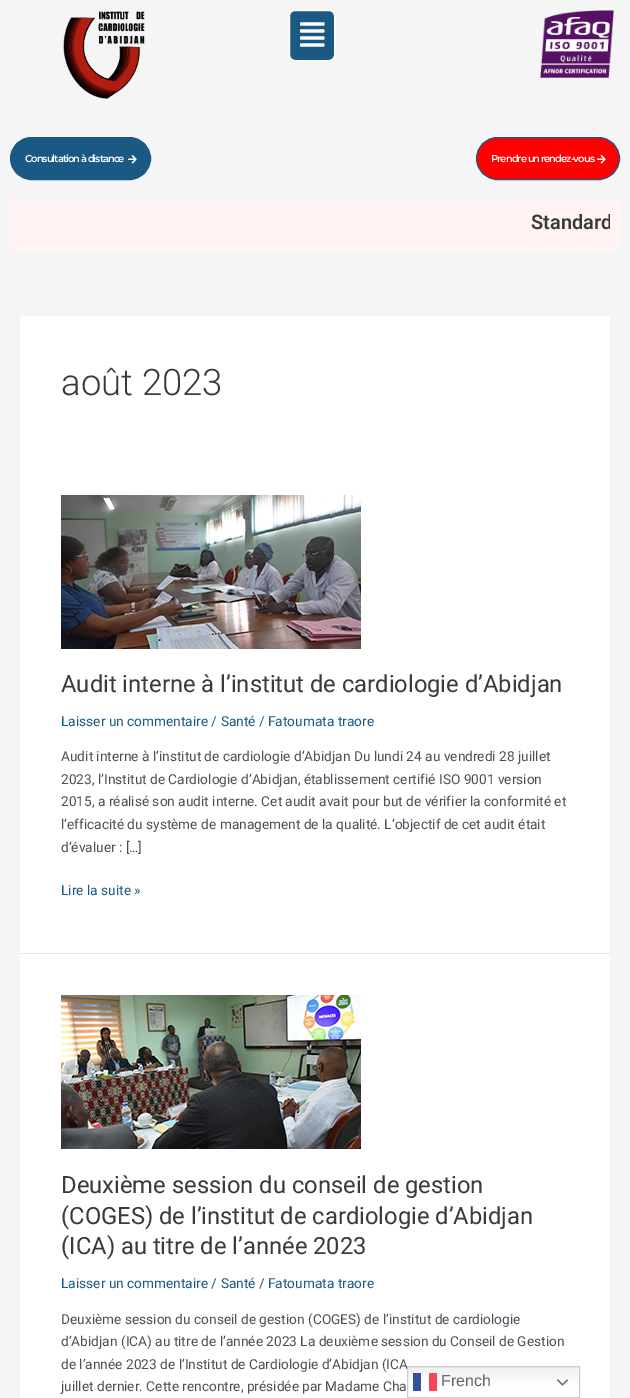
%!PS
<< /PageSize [630 1398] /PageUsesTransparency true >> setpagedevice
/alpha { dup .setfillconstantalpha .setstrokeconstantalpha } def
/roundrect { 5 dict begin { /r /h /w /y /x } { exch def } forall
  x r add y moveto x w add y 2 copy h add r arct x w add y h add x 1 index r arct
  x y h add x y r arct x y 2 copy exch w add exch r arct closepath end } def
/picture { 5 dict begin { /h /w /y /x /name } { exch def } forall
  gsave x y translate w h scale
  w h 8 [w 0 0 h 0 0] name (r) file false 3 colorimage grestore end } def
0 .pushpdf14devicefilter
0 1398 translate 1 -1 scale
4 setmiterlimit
0.961 setgray
0 0 630 1398 rectfill
(img1.rgb) 63 11 82 88 picture
0.106 0.349 0.522 setrgbcolor
289.5 10.5 45 50 5.5 roundrect gsave fill grestore
1 setgray
stroke
(img2.rgb) 300 22 25 25 picture
(img3.rgb) 540 10 74 68 picture
0.106 0.349 0.522 setrgbcolor
10.5 137.5 140 42 21 roundrect gsave fill grestore
stroke
/Montserrat-SemiBold [10 0 0 -10 0 0] selectfont
1 setgray
25 162 moveto -1 0 (Consultation à distance) ashow
(img4.rgb) 128 155 9 9 picture
1 0 0 setrgbcolor
476.5 137.5 143 42 21 roundrect gsave fill grestore
0.106 0.349 0.522 setrgbcolor
stroke
1 setgray
491 162 moveto -1 0 (Prendre un rendez-vous) ashow
(img5.rgb) 597 155 9 9 picture
1 0.953 0.953 setrgbcolor
10 199 610 53 rectfill
gsave
20 209 590 26 rectclip
/Roboto-SemiBold [20 0 0 -20 0 0] selectfont
0.227 setgray
531 229 moveto (Standard) show
grestore
1 setgray
20 316 590 637 rectfill
/Roboto-Light [36.5 0 0 -36.5 0 0] selectfont
0.227 setgray
61 395 moveto (août 2023) show
0.898 setgray
20 953 590 1 rectfill
(img6.rgb) 61 495 300 154 picture
/Roboto-Regular [23.75 0 0 -23.75 0 0] selectfont
0.227 setgray
61 692 moveto (Audit interne à l’institut de cardiologie d’Abidjan) show
/Roboto-Regular [13.7 0 0 -13.7 0 0] selectfont
0.106 0.349 0.522 setrgbcolor
61 726 moveto (Laisser un commentaire / Santé / Fatoumata traore) show
0.294 0.31 0.345 setrgbcolor
61 761 moveto (Audit interne à l’institut de cardiologie d’Abidjan Du lundi 24 au vendredi 28 juillet) show
61 784 moveto (2023, l’Institut de Cardiologie d’Abidjan, établissement certifié ISO 9001 version) show
61 806 moveto (2015, a réalisé son audit interne. Cet audit avait pour but de vérifier la conformité et) show
61 829 moveto (l’efficacité du système de management de la qualité. L’objectif de cet audit était) show
61 852 moveto (d’évaluer : […]) show
0.106 0.349 0.522 setrgbcolor
61 895 moveto (Lire la suite ») show
1 setgray
20 954 590 444 rectfill
(img7.rgb) 61 995 300 154 picture
/Roboto-Regular [23.75 0 0 -23.75 0 0] selectfont
0.227 setgray
61 1193 moveto (Deuxième session du conseil de gestion) show
61 1224 moveto (\(COGES\) de l’institut de cardiologie d’Abidjan) show
61 1254 moveto (\(ICA\) au titre de l’année 2023) show
/Roboto-Regular [13.7 0 0 -13.7 0 0] selectfont
0.106 0.349 0.522 setrgbcolor
61 1288 moveto (Laisser un commentaire / Santé / Fatoumata traore) show
0.294 0.31 0.345 setrgbcolor
61 1324 moveto (Deuxième session du conseil de gestion \(COGES\) de l’institut de cardiologie) show
61 1346 moveto (d’Abidjan \(ICA\) au titre de l’année 2023 La deuxième session du Conseil de Gestion) show
61 1369 moveto (de l’année 2023 de l’Institut de Cardiologie d’Abidjan \(ICA) show
61 1391 moveto (juillet dernier. Cette rencontre, présidée par Madame Cha) show
gsave newpath 408 1367 moveto 579 1367 lineto 579 1385 lineto 408 1385 lineto closepath clip newpath
<< /ShadingType 2 /ColorSpace /DeviceRGB /Coords [494 1366 494 1398] /Extend [true true] /Function << /FunctionType 3 /Domain [0 1] /Functions [<< /FunctionType 2 /Domain [0 1] /C0 [0.937 0.937 0.937] /C1 [1 1 1] /N 1 >> << /FunctionType 2 /Domain [0 1] /C0 [1 1 1] /C1 [1 1 1] /N 1 >>] /Bounds [0.7] /Encode [0 1 0 1] >> >> shfill grestore
0.8 setgray
407.5 1366.5 172 31 rectstroke
0.2 0.318 0.596 setrgbcolor
413 1373 8 18 rectfill
0.8 alpha
1 setgray
421 1373 8 18 rectfill
1 alpha
0.961 0.275 0.349 setrgbcolor
429 1373 8 18 rectfill
/LiberationSans-Regular [16 0 0 -16 0 0] selectfont
0.4 setgray
441 1386 moveto (French) show
(img8.rgb) 557 1379 11 7 picture
.poppdf14devicefilter showpage
